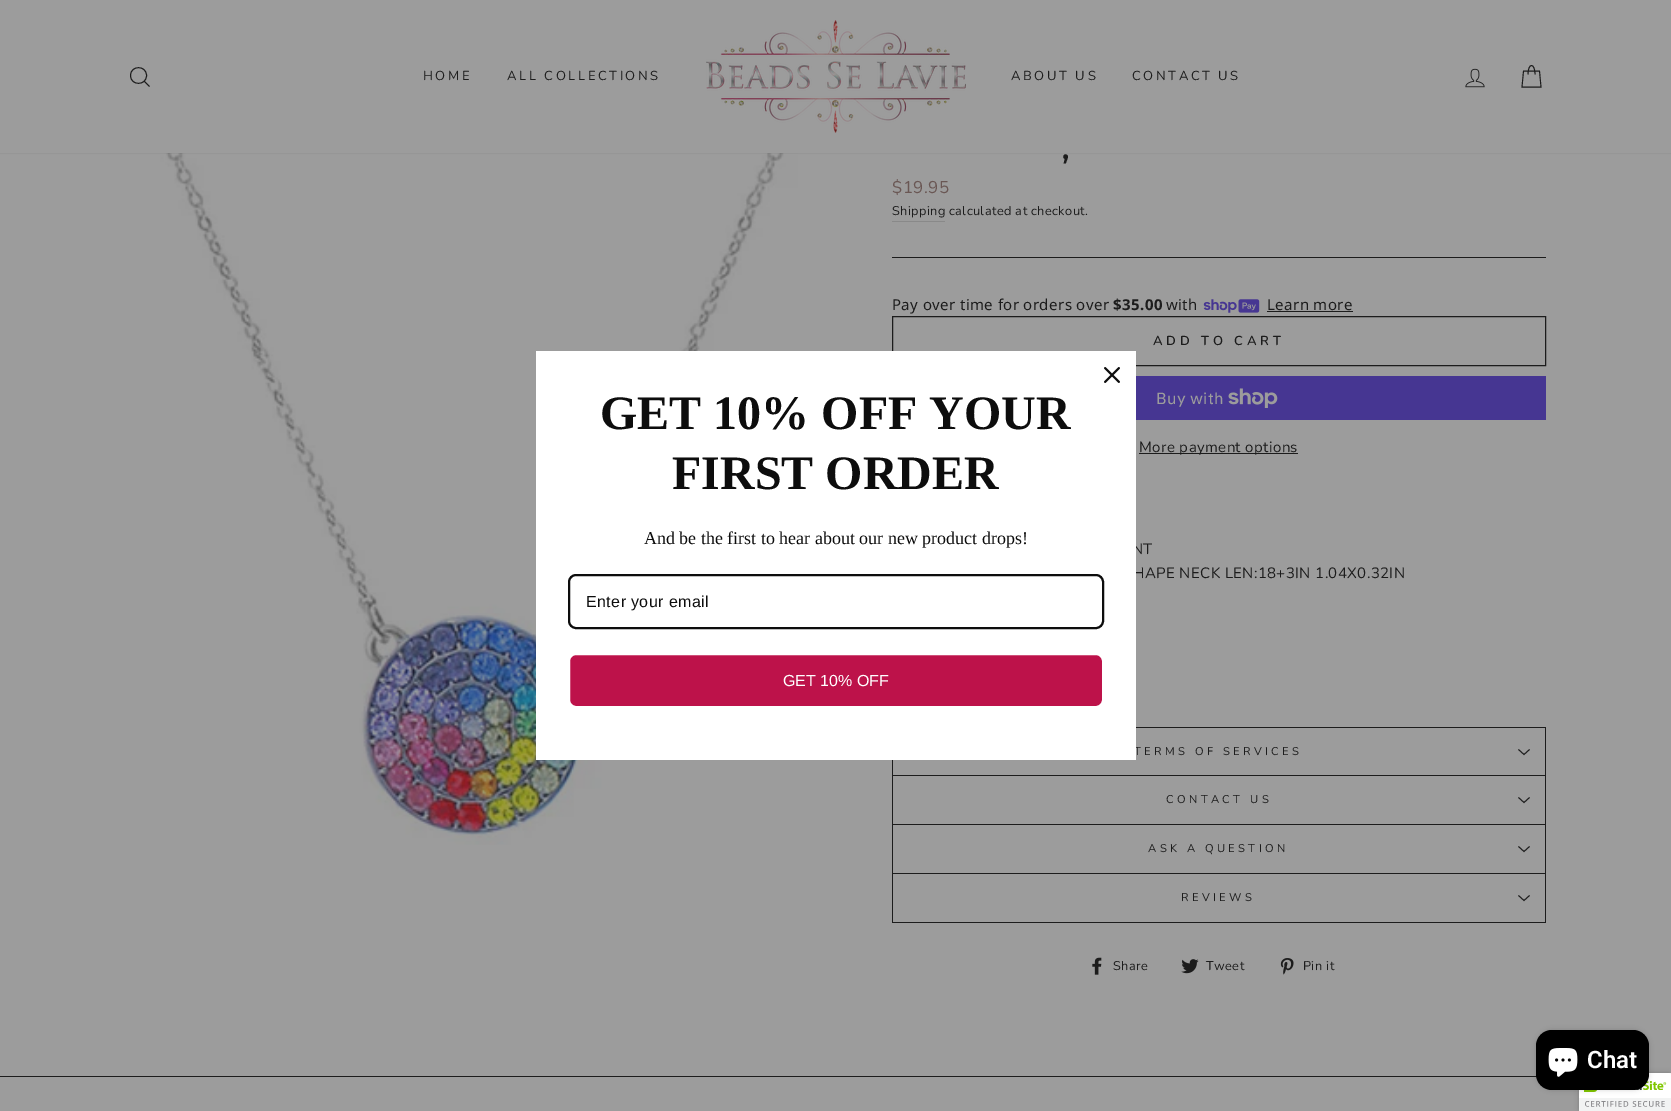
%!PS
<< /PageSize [1671 1111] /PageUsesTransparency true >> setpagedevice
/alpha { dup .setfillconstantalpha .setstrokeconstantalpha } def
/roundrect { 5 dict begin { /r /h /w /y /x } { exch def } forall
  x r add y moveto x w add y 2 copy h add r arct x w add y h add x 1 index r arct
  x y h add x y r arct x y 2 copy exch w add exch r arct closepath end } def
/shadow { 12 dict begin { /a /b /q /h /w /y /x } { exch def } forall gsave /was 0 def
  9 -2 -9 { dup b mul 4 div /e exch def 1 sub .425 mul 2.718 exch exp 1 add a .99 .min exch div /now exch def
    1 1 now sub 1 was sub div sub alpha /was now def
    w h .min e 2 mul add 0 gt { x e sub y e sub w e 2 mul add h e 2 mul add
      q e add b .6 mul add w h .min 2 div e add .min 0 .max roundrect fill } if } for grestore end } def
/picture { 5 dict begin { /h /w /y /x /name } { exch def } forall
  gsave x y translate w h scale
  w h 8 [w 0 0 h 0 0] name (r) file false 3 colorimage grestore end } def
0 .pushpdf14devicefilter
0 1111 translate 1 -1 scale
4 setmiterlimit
0.612 setgray
0 0 1671 1111 rectfill
(img3.rgb) 126 153 699 692 picture
0.11 setgray
0 0 1671 153 0 0.5 0.2 shadow
0.612 setgray
0 0 1671 153 rectfill
0.11 setgray
0.9 setlinewidth
newpath 146.5 75.5 moveto 146.5 86 130.5 86 130.5 75.5 curveto 130.5 65 146.5 65 146.5 75.5 curveto closepath 149.5 86.5 moveto 144.5 81.5 lineto stroke
/Nunito-Regular [13 0 0 -13 0 0] selectfont
423 80 moveto 2.6 0 (HOME) ashow
507 80 moveto 2.6 0 (ALL COLLECTIONS) ashow
(img1.rgb) 706 20 260 113 picture
1011 80 moveto 2.6 0 (ABOUT US) ashow
1132 80 moveto 2.6 0 (CONTACT US) ashow
(img2.rgb) 1465 68 20 20 picture
newpath 1528 74.5 moveto 1528 62.5 1535 62.5 1535 74.5 curveto 1523.5 71 moveto 1539.5 71 lineto 1541 87 lineto 1522 87 lineto closepath stroke
/Montserrat-SemiBold [30 0 0 -30 0 0] selectfont
1062 159 moveto (,) show
/Nunito-Regular [17 0 0 -17 0 0] selectfont
0.416 0.341 0.329 setrgbcolor
892 193 moveto 0.4 0 ($19.95) ashow
0.537 setgray
892 221 53 1 rectfill
/Nunito-Regular [12.75 0 0 -12.75 0 0] selectfont
0.11 setgray
892 215 moveto 0.4 0 (Shipping) ashow
949 215 moveto 0.4 0 (calculated at checkout.) ashow
892 257 654 1 rectfill
/NotoSans-Regular [15 0 0 -15 0 0] selectfont
892 310 moveto 0.4 0 (Pay over time for orders over) ashow
/NotoSans-Bold [15 0 0 -15 0 0] selectfont
1113 310 moveto 0.4 0 ($35.00) ashow
/NotoSans-Regular [15 0 0 -15 0 0] selectfont
1166 310 moveto 0.4 0 (with) ashow
(img4.rgb) 1203 299 57 14 picture
1267 310 moveto 0.4 0 (Learn more) ashow
1267 311 86 1 rectfill
1 setlinewidth
892.5 316.5 653 49 rectstroke
/Nunito-SemiBold [13 0 0 -13 0 0] selectfont
1153 345 moveto 3.9 0 (ADD TO CART) ashow
0.275 0.212 0.573 setrgbcolor
1136 376 410 44 rectfill
/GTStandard-Regular [16 0 0 -16 0 0] selectfont
0.612 setgray
1156 404 moveto 0.4 0 (Buy with) ashow
(img5.rgb) 1228 388 50 20 picture
0.11 setgray
1139 453 159 1 rectfill
/Nunito-Regular [15 0 0 -15 0 0] selectfont
1139 452 moveto 0.4 0 (More payment options) ashow
1132 554 moveto 0.4 0 (NT) ashow
1133 578 moveto 0.4 0 (HAPE NECK LEN:18+3IN 1.04X0.32IN) ashow
892 922 654 1 rectfill
1136 727 410 1 rectfill
1545 727 1 49 rectfill
892 760 1 16 rectfill
/Nunito-Regular [11.25 0 0 -11.25 0 0] selectfont
1134 755 moveto 3.4 0 (TERMS OF SERVICES) ashow
0.9 setlinewidth
newpath 1518.5 749.5 moveto 1524 754.5 lineto 1529.5 749.5 lineto stroke
892 775 654 1 rectfill
1545 775 1 49 rectfill
892 775 1 49 rectfill
1166 803 moveto 3.4 0 (CONTACT US) ashow
newpath 1518.5 797.5 moveto 1524 802.5 lineto 1529.5 797.5 lineto stroke
892 824 654 1 rectfill
1545 824 1 49 rectfill
892 824 1 49 rectfill
1148 852 moveto 3.4 0 (ASK A QUESTION) ashow
newpath 1518.5 846.5 moveto 1524 851.5 lineto 1529.5 846.5 lineto stroke
892 873 654 1 rectfill
1545 873 1 49 rectfill
892 873 1 49 rectfill
1181 901 moveto 3.4 0 (REVIEWS) ashow
newpath 1518.5 895.5 moveto 1524 900.5 lineto 1529.5 895.5 lineto stroke
(img6.rgb) 1092 957 10 18 picture
/Nunito-Regular [12.75 0 0 -12.75 0 0] selectfont
1113 970 moveto 0.4 0 (Share) ashow
(img7.rgb) 1181 959 18 15 picture
1206 970 moveto 0.4 0 (Tweet) ashow
(img8.rgb) 1280 958 14 17 picture
1303 970 moveto 0.4 0 (Pin it) ashow
0 1076 1537 1 rectfill
1 setgray
536 351 600 409 rectfill
(img9.rgb) 1104 367 16 16 picture
/LiberationSerif-Bold [48 0 0 -48 0 0] selectfont
0.051 setgray
600 429 moveto (GET 10% OFF YOUR) show
672 489 moveto (FIRST ORDER) show
/LiberationSerif-Regular [18 0 0 -18 0 0] selectfont
644 544 moveto (And be the first to hear about our new product drops!) show
2 setlinewidth
569 575 534 53 7 roundrect stroke
/LiberationSans-Regular [16 0 0 -16 0 0] selectfont
586 607 moveto 0.4 0 (Enter your email) ashow
0.741 0.071 0.29 setrgbcolor
569 654 534 53 7 roundrect gsave fill grestore
1 setgray
stroke
783 686 moveto (GET 10% OFF) show
0 setgray
1579 1073 92 38 2 2.5 0.2 shadow
1 setgray
1669 1073 2 2 rectfill
(img11.rgb) 1579 1073 92 38 picture
0 setgray
1536 1030 113 60 16 2.5 0.15 shadow
1536 1030 113 60 16 roundrect fill
(img10.rgb) 1548 1048 30 29 picture
/Roboto-SemiBold [24 0 0 -24 0 0] selectfont
1 setgray
1587 1068 moveto (Chat) show
.poppdf14devicefilter showpage
